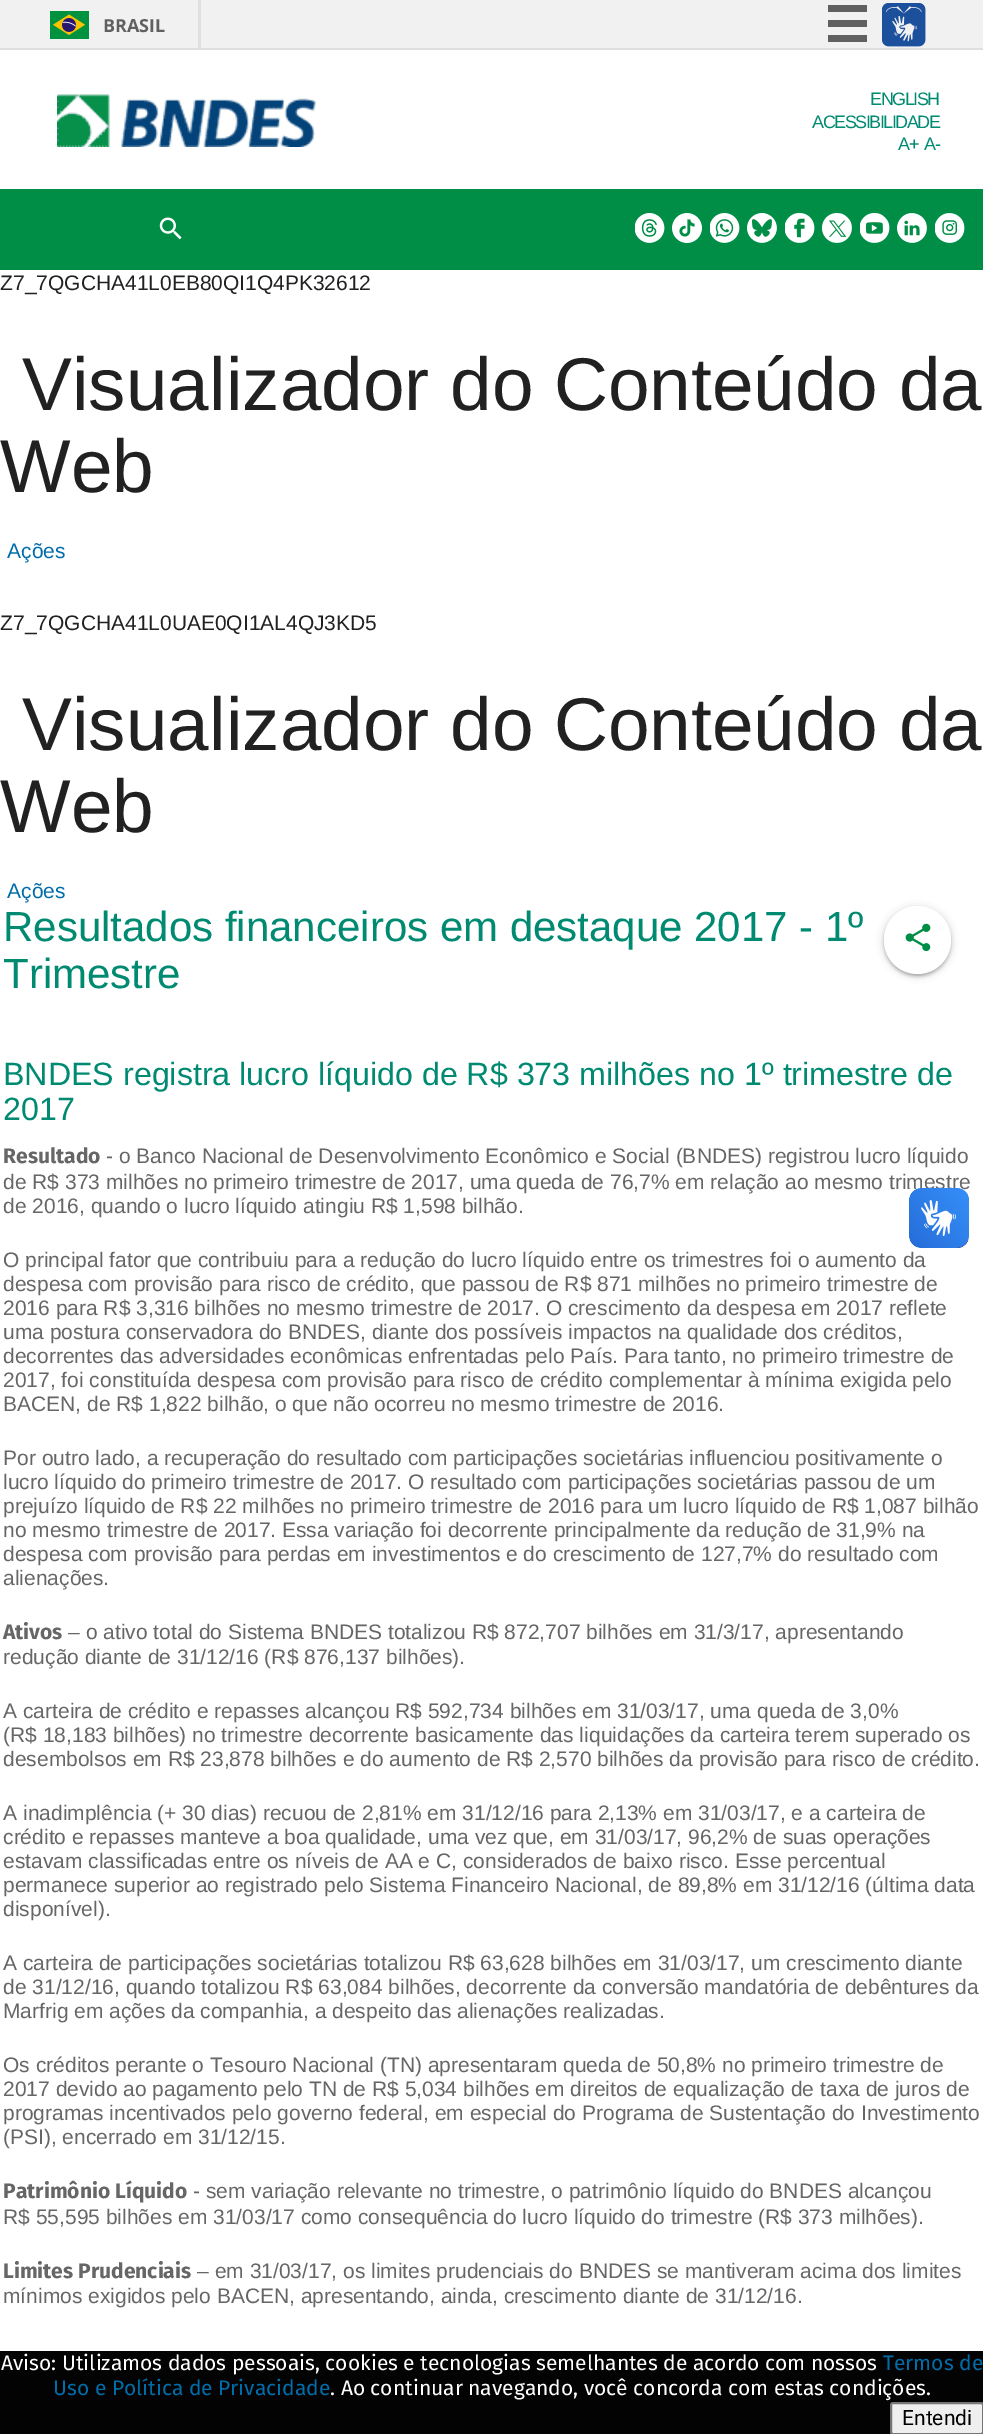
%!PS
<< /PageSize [983 2434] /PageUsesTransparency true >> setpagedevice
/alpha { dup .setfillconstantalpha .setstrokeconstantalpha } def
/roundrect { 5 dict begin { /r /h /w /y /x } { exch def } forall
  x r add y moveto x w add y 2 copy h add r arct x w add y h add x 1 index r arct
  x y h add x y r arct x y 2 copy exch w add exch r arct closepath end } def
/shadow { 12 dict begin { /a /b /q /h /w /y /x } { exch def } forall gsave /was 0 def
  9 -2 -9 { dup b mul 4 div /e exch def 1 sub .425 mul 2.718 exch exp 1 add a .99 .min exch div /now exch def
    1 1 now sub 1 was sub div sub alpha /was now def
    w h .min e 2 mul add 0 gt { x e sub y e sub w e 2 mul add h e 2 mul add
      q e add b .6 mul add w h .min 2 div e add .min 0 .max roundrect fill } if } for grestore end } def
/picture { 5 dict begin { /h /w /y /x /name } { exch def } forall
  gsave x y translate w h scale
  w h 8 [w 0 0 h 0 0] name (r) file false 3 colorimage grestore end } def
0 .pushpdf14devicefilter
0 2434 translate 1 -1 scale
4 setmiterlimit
1 setgray
0 0 983 2434 rectfill
0.945 setgray
0 0 983 48 rectfill
0.875 setgray
0 48 983 2 rectfill
198 0 3 48 rectfill
(img1.rgb) 50 11 39 28 picture
/OpenSans-Bold [18 0 0 -18 0 0] selectfont
0.376 setgray
103 32 moveto (BRASIL) show
828 5 39 7 rectfill
828 20 39 7 rectfill
828 35 39 7 rectfill
(img2.rgb) 882 3 44 44 picture
(img3.rgb) 57 94 260 53 picture
/LiberationSans-Regular [18 0 0 -18 0 0] selectfont
0 0.541 0.443 setrgbcolor
870 105 moveto -1.5 0 (ENGLISH) ashow
812 128 moveto -1.5 0 (ACESSIBILIDADE) ashow
898 150 moveto -1.5 0 (A+) ashow
924 150 moveto -1.5 0 (A-) ashow
0 0.557 0.278 setrgbcolor
0 189 983 81 rectfill
(img4.rgb) 159 217 23 23 picture
(img5.rgb) 635 213 30 30 picture
(img6.rgb) 672 213 30 30 picture
(img7.rgb) 710 213 30 30 picture
(img8.rgb) 747 213 30 30 picture
(img9.rgb) 785 213 30 30 picture
(img10.rgb) 822 213 30 30 picture
(img11.rgb) 860 213 30 30 picture
(img12.rgb) 897 213 30 30 picture
(img13.rgb) 935 213 30 30 picture
/LiberationSans-Regular [21 0 0 -21 0 0] selectfont
0.129 setgray
0 290 moveto (Z7_7QGCHA41L0EB80QI1Q4PK32612) show
/LiberationSans-Regular [74.75 0 0 -74.75 0 0] selectfont
22 410 moveto (Visualizador do Conteúdo da) show
0 492 moveto (Web) show
/LiberationSans-Regular [21 0 0 -21 0 0] selectfont
0 0.427 0.667 setrgbcolor
7 558 moveto (Ações) show
0.129 setgray
0 630 moveto (Z7_7QGCHA41L0UAE0QI1AL4QJ3KD5) show
/LiberationSans-Regular [74.75 0 0 -74.75 0 0] selectfont
22 750 moveto (Visualizador do Conteúdo da) show
0 832 moveto (Web) show
/LiberationSans-Regular [21 0 0 -21 0 0] selectfont
0 0.427 0.667 setrgbcolor
7 898 moveto (Ações) show
/LiberationSans-Regular [42 0 0 -42 0 0] selectfont
0 0.541 0.443 setrgbcolor
3 941 moveto (Resultados financeiros em destaque 2017 - 1º) show
3 988 moveto (Trimestre) show
0 setgray
884 908 67 67 33.5 4 0.2 shadow
887 914 61 61 30.5 1 0.12 shadow
884 909 67 68 33.5 1.5 0.14 shadow
1 setgray
884 906 67 68 33.5 roundrect fill
(img14.rgb) 905 923 26 29 picture
/LiberationSans-Regular [32.2 0 0 -32.2 0 0] selectfont
0 0.541 0.443 setrgbcolor
3 1085 moveto (BNDES registra lucro líquido de R$ 373 milhões no 1º trimestre de) show
3 1120 moveto (2017) show
/FiraSans-Bold [21 0 0 -21 0 0] selectfont
0.4 setgray
3 1163 moveto (Resultado) show
/LiberationSans-Regular [21 0 0 -21 0 0] selectfont
106 1163 moveto (- o Banco Nacional de Desenvolvimento Econômico e Social \(BNDES\) registrou lucro líquido) show
3 1189 moveto (de R$ 373 milhões no primeiro trimestre de 2017, uma queda de 76,7% em relação ao mesmo trimestre) show
3 1213 moveto (de 2016, quando o lucro líquido atingiu R$ 1,598 bilhão.) show
3 1267 moveto (O principal fator que contribuiu para a redução do lucro líquido entre os trimestres foi o aumento da) show
3 1291 moveto (despesa com provisão para risco de crédito, que passou de R$ 871 milhões no primeiro trimestre de) show
3 1315 moveto (2016 para R$ 3,316 bilhões no mesmo trimestre de 2017. O crescimento da despesa em 2017 reflete) show
3 1339 moveto (uma postura conservadora do BNDES, diante dos possíveis impactos na qualidade dos créditos,) show
3 1363 moveto (decorrentes das adversidades econômicas enfrentadas pelo País. Para tanto, no primeiro trimestre de) show
3 1387 moveto (2017, foi constituída despesa com provisão para risco de crédito complementar à mínima exigida pelo) show
3 1411 moveto (BACEN, de R$ 1,822 bilhão, o que não ocorreu no mesmo trimestre de 2016.) show
3 1465 moveto (Por outro lado, a recuperação do resultado com participações societárias influenciou positivamente o) show
3 1489 moveto (lucro líquido do primeiro trimestre de 2017. O resultado com participações societárias passou de um) show
3 1513 moveto (prejuízo líquido de R$ 22 milhões no primeiro trimestre de 2016 para um lucro líquido de R$ 1,087 bilhão) show
3 1537 moveto (no mesmo trimestre de 2017. Essa variação foi decorrente principalmente da redução de 31,9% na) show
3 1561 moveto (despesa com provisão para perdas em investimentos e do crescimento de 127,7% do resultado com) show
3 1585 moveto (alienações.) show
/FiraSans-Bold [21 0 0 -21 0 0] selectfont
3 1639 moveto (Ativos) show
/LiberationSans-Regular [21 0 0 -21 0 0] selectfont
68 1639 moveto (– o ativo total do Sistema BNDES totalizou R$ 872,707 bilhões em 31/3/17, apresentando) show
3 1664 moveto (redução diante de 31/12/16 \(R$ 876,137 bilhões\).) show
3 1718 moveto (A carteira de crédito e repasses alcançou R$ 592,734 bilhões em 31/03/17, uma queda de 3,0%) show
3 1742 moveto (\(R$ 18,183 bilhões\) no trimestre decorrente basicamente das liquidações da carteira terem superado os) show
3 1766 moveto (desembolsos em R$ 23,878 bilhões e do aumento de R$ 2,570 bilhões da provisão para risco de crédito.) show
3 1820 moveto (A inadimplência \(+ 30 dias\) recuou de 2,81% em 31/12/16 para 2,13% em 31/03/17, e a carteira de) show
3 1844 moveto (crédito e repasses manteve a boa qualidade, uma vez que, em 31/03/17, 96,2% de suas operações) show
3 1868 moveto (estavam classificadas entre os níveis de AA e C, considerados de baixo risco. Esse percentual) show
3 1892 moveto (permanece superior ao registrado pelo Sistema Financeiro Nacional, de 89,8% em 31/12/16 \(última data) show
3 1916 moveto (disponível\).) show
3 1970 moveto (A carteira de participações societárias totalizou R$ 63,628 bilhões em 31/03/17, um crescimento diante) show
3 1994 moveto (de 31/12/16, quando totalizou R$ 63,084 bilhões, decorrente da conversão mandatória de debêntures da) show
3 2018 moveto (Marfrig em ações da companhia, a despeito das alienações realizadas.) show
3 2072 moveto (Os créditos perante o Tesouro Nacional \(TN\) apresentaram queda de 50,8% no primeiro trimestre de) show
3 2096 moveto (2017 devido ao pagamento pelo TN de R$ 5,034 bilhões em direitos de equalização de taxa de juros de) show
3 2120 moveto (programas incentivados pelo governo federal, em especial do Programa de Sustentação do Investimento) show
3 2144 moveto (\(PSI\), encerrado em 31/12/15.) show
/FiraSans-Bold [21 0 0 -21 0 0] selectfont
3 2198 moveto (Patrimônio Líquido) show
/LiberationSans-Regular [21 0 0 -21 0 0] selectfont
193 2198 moveto (- sem variação relevante no trimestre, o patrimônio líquido do BNDES alcançou) show
3 2224 moveto (R$ 55,595 bilhões em 31/03/17 como consequência do lucro líquido do trimestre \(R$ 373 milhões\).) show
/FiraSans-Bold [21 0 0 -21 0 0] selectfont
3 2278 moveto (Limites Prudenciais) show
/LiberationSans-Regular [21 0 0 -21 0 0] selectfont
197 2278 moveto (– em 31/03/17, os limites prudenciais do BNDES se mantiveram acima dos limites) show
3 2303 moveto (mínimos exigidos pelo BACEN, apresentando, ainda, crescimento diante de 31/12/16.) show
(img15.rgb) 909 1188 60 60 picture
(img16.rgb) 909 1188 60 60 picture
0.012 setgray
0 2351 983 83 rectfill
/FiraSans-Regular [21 0 0 -21 0 0] selectfont
1 setgray
1 2370 moveto (Aviso: Utilizamos dados pessoais, cookies e tecnologias semelhantes de acordo com nossos) show
0 0.427 0.667 setrgbcolor
883 2370 moveto (Termos de) show
53 2395 moveto (Uso e Política de Privacidade) show
1 setgray
330 2395 moveto (. Ao continuar navegando, você concorda com estas condições.) show
0.937 setgray
891 2403 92 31 2 roundrect gsave fill grestore
0.463 setgray
2 setlinewidth
stroke
/Roboto-Regular [21 0 0 -21 0 0] selectfont
0 setgray
902 2425 moveto (Entendi) show
.poppdf14devicefilter showpage
